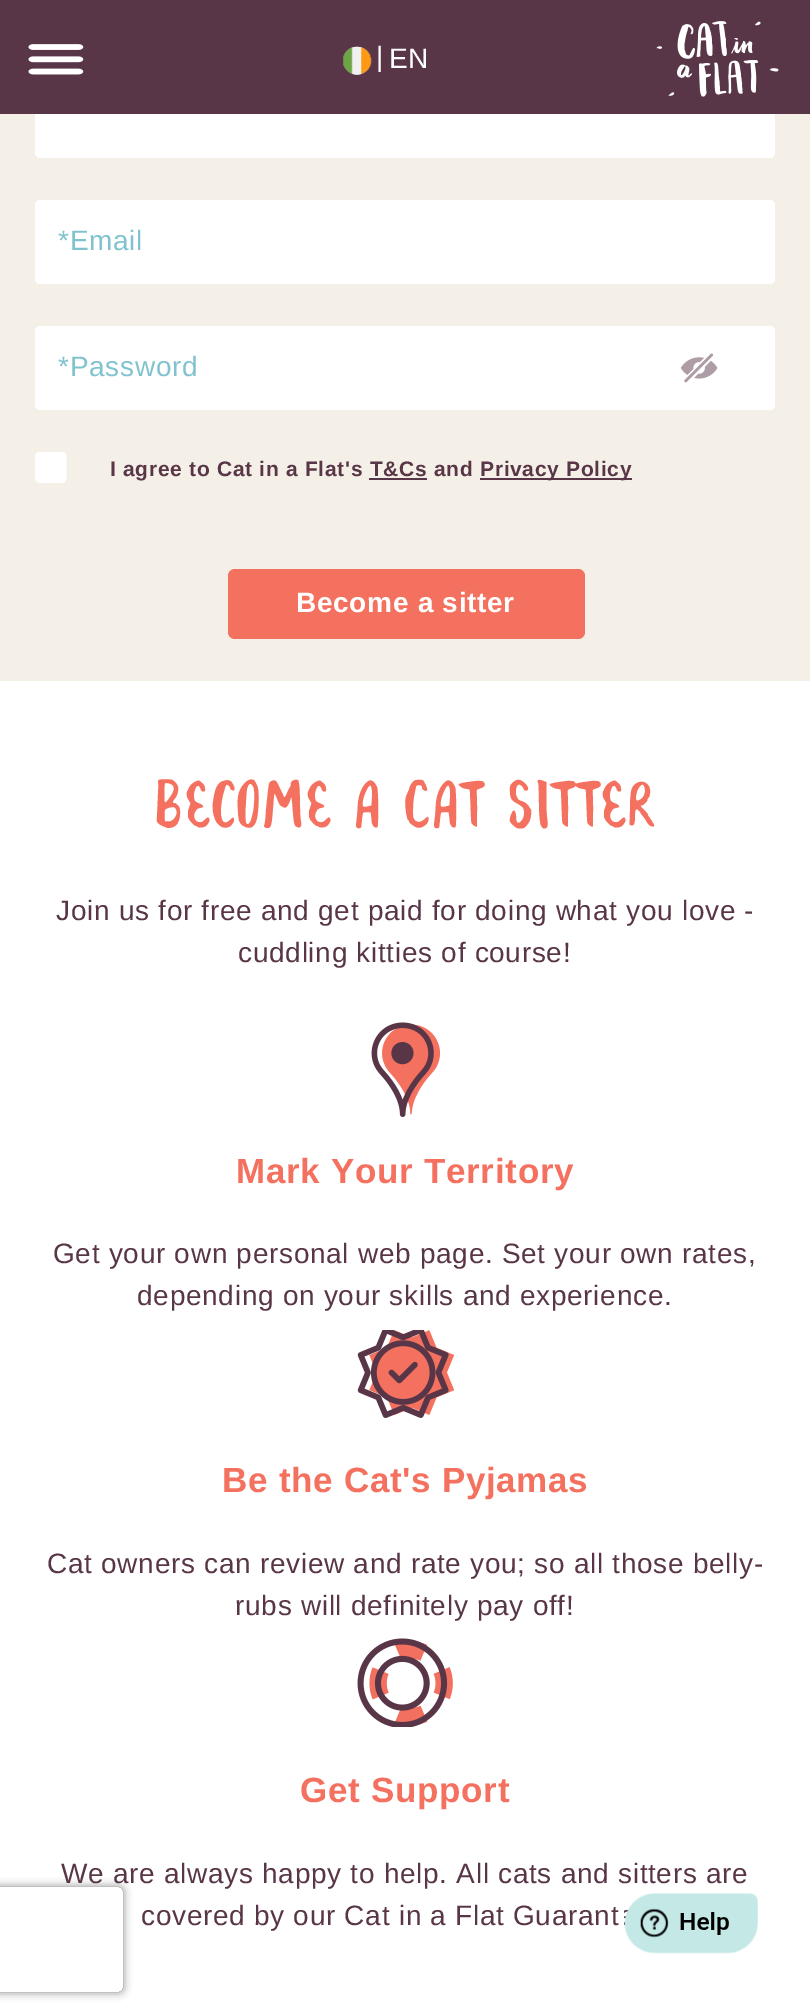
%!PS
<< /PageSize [810 2015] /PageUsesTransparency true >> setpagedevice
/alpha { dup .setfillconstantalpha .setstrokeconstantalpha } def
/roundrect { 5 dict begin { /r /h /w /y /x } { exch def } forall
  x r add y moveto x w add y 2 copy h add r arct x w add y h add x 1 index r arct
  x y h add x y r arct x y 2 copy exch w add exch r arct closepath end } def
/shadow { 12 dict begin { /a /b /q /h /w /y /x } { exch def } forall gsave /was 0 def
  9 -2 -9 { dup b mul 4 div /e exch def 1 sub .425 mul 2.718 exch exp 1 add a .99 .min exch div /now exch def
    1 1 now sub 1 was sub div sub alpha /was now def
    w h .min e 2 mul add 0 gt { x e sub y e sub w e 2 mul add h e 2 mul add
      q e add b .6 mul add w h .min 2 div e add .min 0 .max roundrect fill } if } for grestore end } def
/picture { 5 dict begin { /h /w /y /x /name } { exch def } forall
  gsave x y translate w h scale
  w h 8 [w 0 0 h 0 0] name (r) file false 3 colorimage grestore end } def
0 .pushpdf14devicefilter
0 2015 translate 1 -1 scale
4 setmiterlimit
1 setgray
0 0 810 2015 rectfill
0.957 0.941 0.91 setrgbcolor
0 114 810 567 rectfill
1 setgray
35 74 740 84 5 roundrect fill
0.349 0.212 0.278 setrgbcolor
0 0 810 114 rectfill
(img1.rgb) 28 44 56 31 picture
(img2.rgb) 343 46 29 29 picture
/LiberationSans-Regular [28 0 0 -28 0 0] selectfont
1 setgray
376 66 moveto 0.7 0 (|) ashow
389 68 moveto 0.7 0 (EN) ashow
(img3.rgb) 656 21 123 76 picture
35 200 740 84 5 roundrect fill
0.502 0.765 0.808 setrgbcolor
58 250 moveto 0.7 0 (*Email) ashow
1 setgray
35 326 740 84 5 roundrect fill
0.502 0.765 0.808 setrgbcolor
58 376 moveto 0.7 0 (*Password) ashow
(img4.rgb) 680 353 38 30 picture
(img5.rgb) 35 452 32 31 picture
/LiberationSans-Bold [21 0 0 -21 0 0] selectfont
0.349 0.212 0.278 setrgbcolor
110 476 moveto 0.7 0 (I agree to Cat in a Flat's T&Cs and) ashow
480 478 152 2 rectfill
480 476 moveto 0.7 0 (Privacy Policy) ashow
369 478 58 2 rectfill
0.957 0.443 0.373 setrgbcolor
228 569 357 70 7 roundrect fill
/LiberationSans-Bold [28 0 0 -28 0 0] selectfont
1 setgray
296 612 moveto 0.7 0 (Become a sitter) ashow
gsave
newpath 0 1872 moveto 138 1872 lineto 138 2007 lineto 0 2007 lineto closepath -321 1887 moveto 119 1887 lineto 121 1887 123 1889 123 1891 curveto 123 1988 lineto 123 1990 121 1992 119 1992 curveto -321 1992 lineto -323 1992 -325 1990 -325 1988 curveto -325 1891 lineto -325 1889 -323 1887 -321 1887 curveto closepath eoclip newpath
0.502 setgray
-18 1887 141 105 4 4.5 1 shadow
grestore
/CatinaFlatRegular-Medium [56 0 0 -56 0 0] selectfont
0.957 0.443 0.373 setrgbcolor
154 829 moveto 0.7 0 (Become a Cat Sitter) ashow
/LiberationSans-Regular [28 0 0 -28 0 0] selectfont
0.349 0.212 0.278 setrgbcolor
56 920 moveto 0.7 0 (Join us for free and get paid for doing what you love -) ashow
238 962 moveto 0.7 0 (cuddling kitties of course!) ashow
(img6.rgb) 371 1022 70 95 picture
/LiberationSans-Bold [35 0 0 -35 0 0] selectfont
0.957 0.443 0.373 setrgbcolor
236 1183 moveto 0.7 0 (Mark Your Territory) ashow
/LiberationSans-Regular [28 0 0 -28 0 0] selectfont
0.349 0.212 0.278 setrgbcolor
53 1263 moveto 0.7 0 (Get your own personal web page. Set your own rates,) ashow
137 1305 moveto 0.7 0 (depending on your skills and experience.) ashow
(img7.rgb) 357 1330 98 88 picture
/LiberationSans-Bold [35 0 0 -35 0 0] selectfont
0.957 0.443 0.373 setrgbcolor
222 1492 moveto 0.7 0 (Be the Cat's Pyjamas) ashow
/LiberationSans-Regular [28 0 0 -28 0 0] selectfont
0.349 0.212 0.278 setrgbcolor
47 1573 moveto 0.7 0 (Cat owners can review and rate you; so all those belly-) ashow
235 1615 moveto 0.7 0 (rubs will definitely pay off!) ashow
(img8.rgb) 357 1638 96 89 picture
/LiberationSans-Bold [35 0 0 -35 0 0] selectfont
0.957 0.443 0.373 setrgbcolor
300 1802 moveto 0.7 0 (Get Support) ashow
/LiberationSans-Regular [28 0 0 -28 0 0] selectfont
0.349 0.212 0.278 setrgbcolor
61 1883 moveto 0.7 0 (We are always happy to help. All cats and sitters are) ashow
141 1925 moveto 0.7 0 (covered by our Cat in a Flat Guarant) ashow
(img9.rgb) 624 1893 134 61 picture
.poppdf14devicefilter showpage
